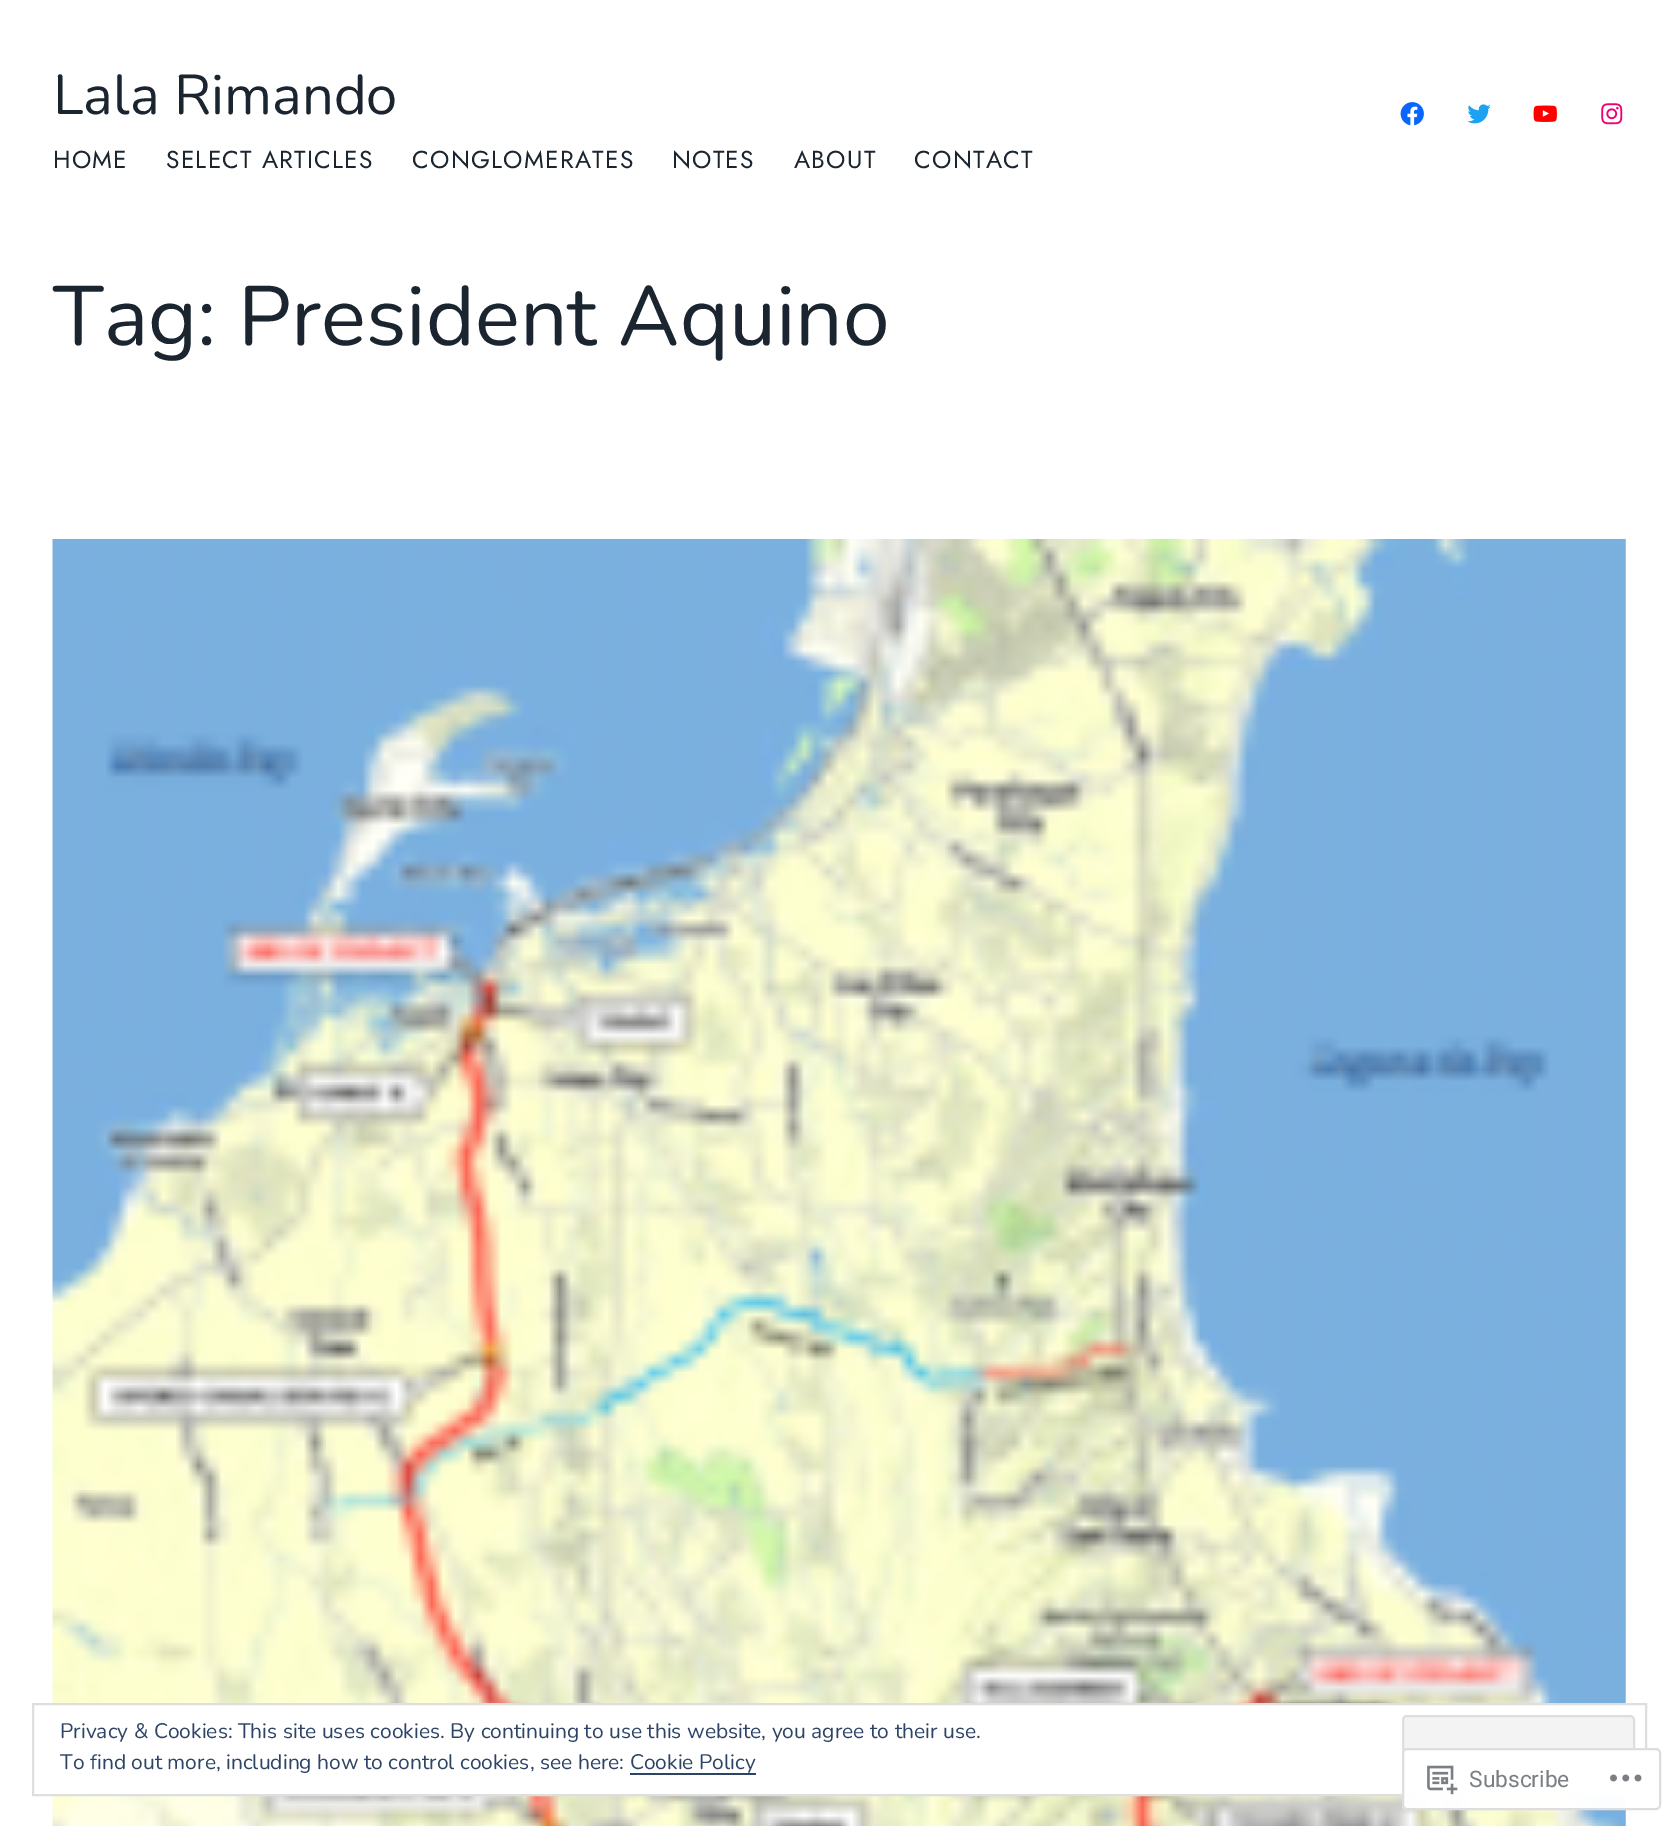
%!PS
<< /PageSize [1678 1826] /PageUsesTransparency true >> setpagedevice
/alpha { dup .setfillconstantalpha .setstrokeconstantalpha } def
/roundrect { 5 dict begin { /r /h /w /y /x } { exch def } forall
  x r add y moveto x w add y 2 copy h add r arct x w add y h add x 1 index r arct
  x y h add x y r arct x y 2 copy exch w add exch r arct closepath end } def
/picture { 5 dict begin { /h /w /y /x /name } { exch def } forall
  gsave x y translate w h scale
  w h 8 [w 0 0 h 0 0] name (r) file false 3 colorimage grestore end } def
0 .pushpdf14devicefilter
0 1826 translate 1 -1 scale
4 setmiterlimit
1 setgray
0 0 1678 1826 rectfill
/Nunito-Regular [56 0 0 -56 0 0] selectfont
0.102 0.145 0.188 setrgbcolor
53 114 moveto (Lala Rimando) show
(img1.rgb) 1400 102 24 24 picture
(img2.rgb) 1467 104 24 20 picture
(img3.rgb) 1533 105 24 17 picture
(img4.rgb) 1601 103 22 22 picture
/Jost-Regular [24.5 0 0 -24.5 0 0] selectfont
53 168 moveto 1.25 0 (HOME) ashow
166 168 moveto 1.25 0 (SELECT ARTICLES) ashow
412 168 moveto 1.25 0 (CONGLOMERATES) ashow
672 168 moveto 1.25 0 (NOTES) ashow
794 168 moveto 1.25 0 (ABOUT) ashow
914 168 moveto 1.25 0 (CONTACT) ashow
/Nunito-Regular [84 0 0 -84 0 0] selectfont
53 345 moveto (Tag: President Aquino) show
(img5.rgb) 52 539 1574 1287 picture
1 setgray
52 1705 1574 89 rectfill
0.871 setgray
2 setlinewidth
33 1704 1613 91 rectstroke
/Nunito-Regular [21 0 0 -21 0 0] selectfont
0.18 0.267 0.404 setrgbcolor
60 1738 moveto (Privacy & Cookies: This site uses cookies. By continuing to use this website, you agree to their use.) show
0.953 setgray
1403 1716 231 66 4 roundrect gsave fill grestore
0.871 setgray
stroke
0.18 0.267 0.404 setrgbcolor
60 1769 moveto (To find out more, including how to control cookies, see here: Cookie Policy) show
630 1773 126 2 rectfill
0.98 alpha
1 setgray
1402 1748 259 62 5 roundrect fill
0.863 0.863 0.871 setrgbcolor
1403 1749 257 60 4 roundrect stroke
1 alpha
(img6.rgb) 1427 1765 31 30 picture
/Roboto-Regular [22.75 0 0 -22.75 0 0] selectfont
0.482 0.498 0.518 setrgbcolor
1469 1787 moveto (Subscribe) show
(img7.rgb) 1610 1774 32 8 picture
.poppdf14devicefilter showpage
